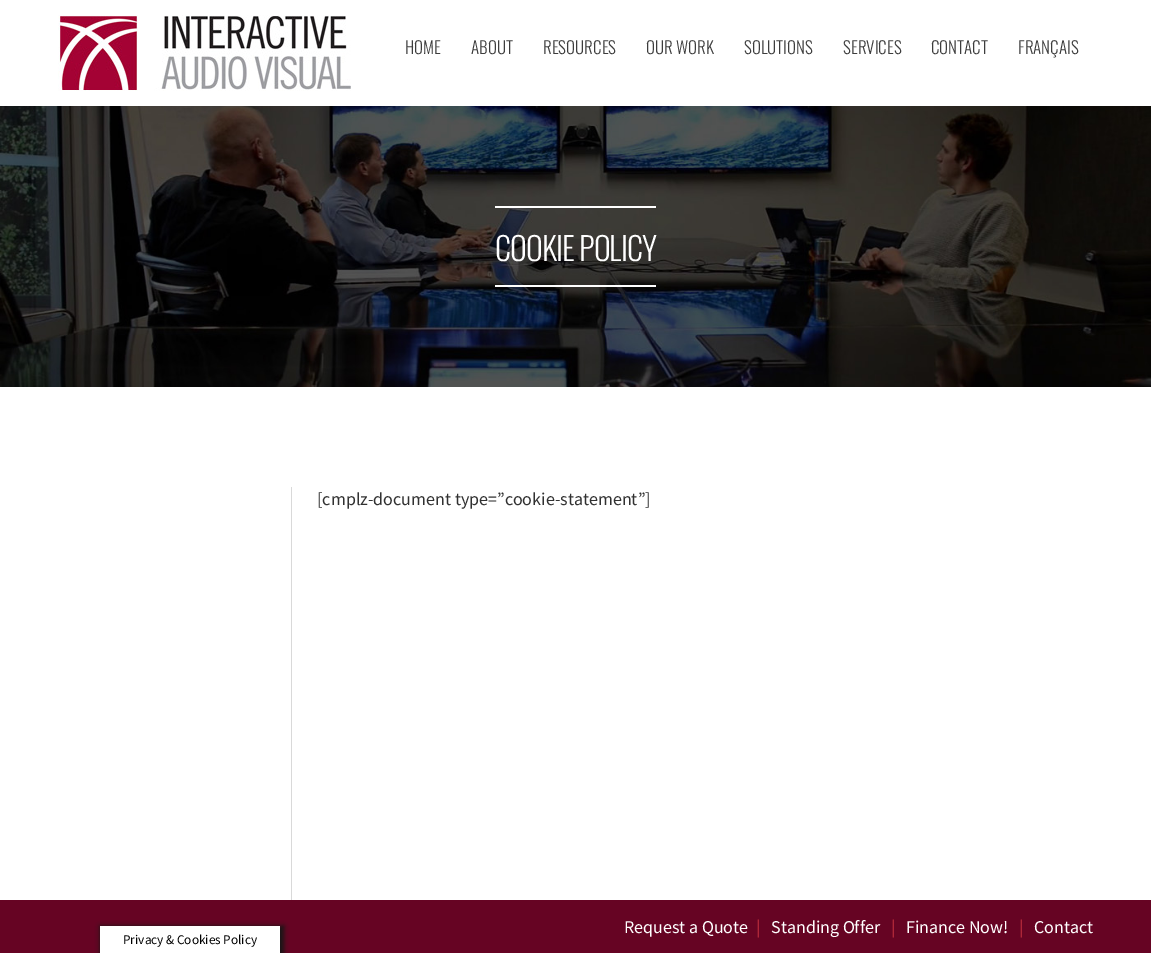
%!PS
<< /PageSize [1151 953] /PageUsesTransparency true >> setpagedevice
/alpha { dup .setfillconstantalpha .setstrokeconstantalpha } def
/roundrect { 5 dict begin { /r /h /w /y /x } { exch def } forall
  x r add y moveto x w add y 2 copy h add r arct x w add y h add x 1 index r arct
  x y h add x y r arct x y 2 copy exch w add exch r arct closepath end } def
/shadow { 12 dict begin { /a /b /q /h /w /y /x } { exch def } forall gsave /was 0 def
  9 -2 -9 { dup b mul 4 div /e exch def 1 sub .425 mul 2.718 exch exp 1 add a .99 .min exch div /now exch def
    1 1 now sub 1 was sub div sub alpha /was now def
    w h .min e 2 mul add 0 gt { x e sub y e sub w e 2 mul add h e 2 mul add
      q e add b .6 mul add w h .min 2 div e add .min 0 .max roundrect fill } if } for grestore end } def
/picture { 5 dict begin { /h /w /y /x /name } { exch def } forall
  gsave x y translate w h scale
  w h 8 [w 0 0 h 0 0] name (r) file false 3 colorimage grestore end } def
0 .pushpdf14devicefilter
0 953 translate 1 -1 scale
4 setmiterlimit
1 setgray
0 0 1151 953 rectfill
(img1.rgb) 58 15 293 76 picture
/Oswald-Light [17 0 0 -17 0 0] selectfont
0.239 setgray
405 54 moveto (HOME) show
471 54 moveto (ABOUT) show
543 54 moveto (RESOURCES) show
646 54 moveto (OUR WORK) show
744 54 moveto (SOLUTIONS) show
843 54 moveto (SERVICES) show
931 54 moveto (CONTACT) show
1018 54 moveto (FRANÇAIS) show
(img2.rgb) 0 106 1151 281 picture
1 setgray
495 206 161 2 rectfill
495 285 161 2 rectfill
/Oswald-Light [32 0 0 -32 0 0] selectfont
495 261 moveto -1 0 (COOKIE POLICY) ashow
0.851 setgray
291 487 1 413 rectfill
/SourceSansPro-Regular [18 0 0 -18 0 0] selectfont
0.192 setgray
317 505 moveto ([cmplz-document type=”cookie-statement”]) show
0.4 0.016 0.137 setrgbcolor
0 900 1151 53 rectfill
1 setgray
624 933 moveto (Request a Quote) show
0.784 0.2 0.247 setrgbcolor
756 933 moveto (|) show
1 setgray
771 933 moveto (Standing Offer) show
0.784 0.2 0.247 setrgbcolor
891 933 moveto (|) show
1 setgray
906 933 moveto (Finance Now!) show
0.784 0.2 0.247 setrgbcolor
1019 933 moveto (|) show
1 setgray
1034 933 moveto (Contact) show
0.086 setgray
100 926 184 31 0 2.5 1 shadow
1 setgray
100 926 180 27 rectfill
/SourceSansPro-Regular [13.25 0 0 -13.25 0 0] selectfont
0 setgray
123 944 moveto (Privacy & Cookies Policy) show
.poppdf14devicefilter showpage
